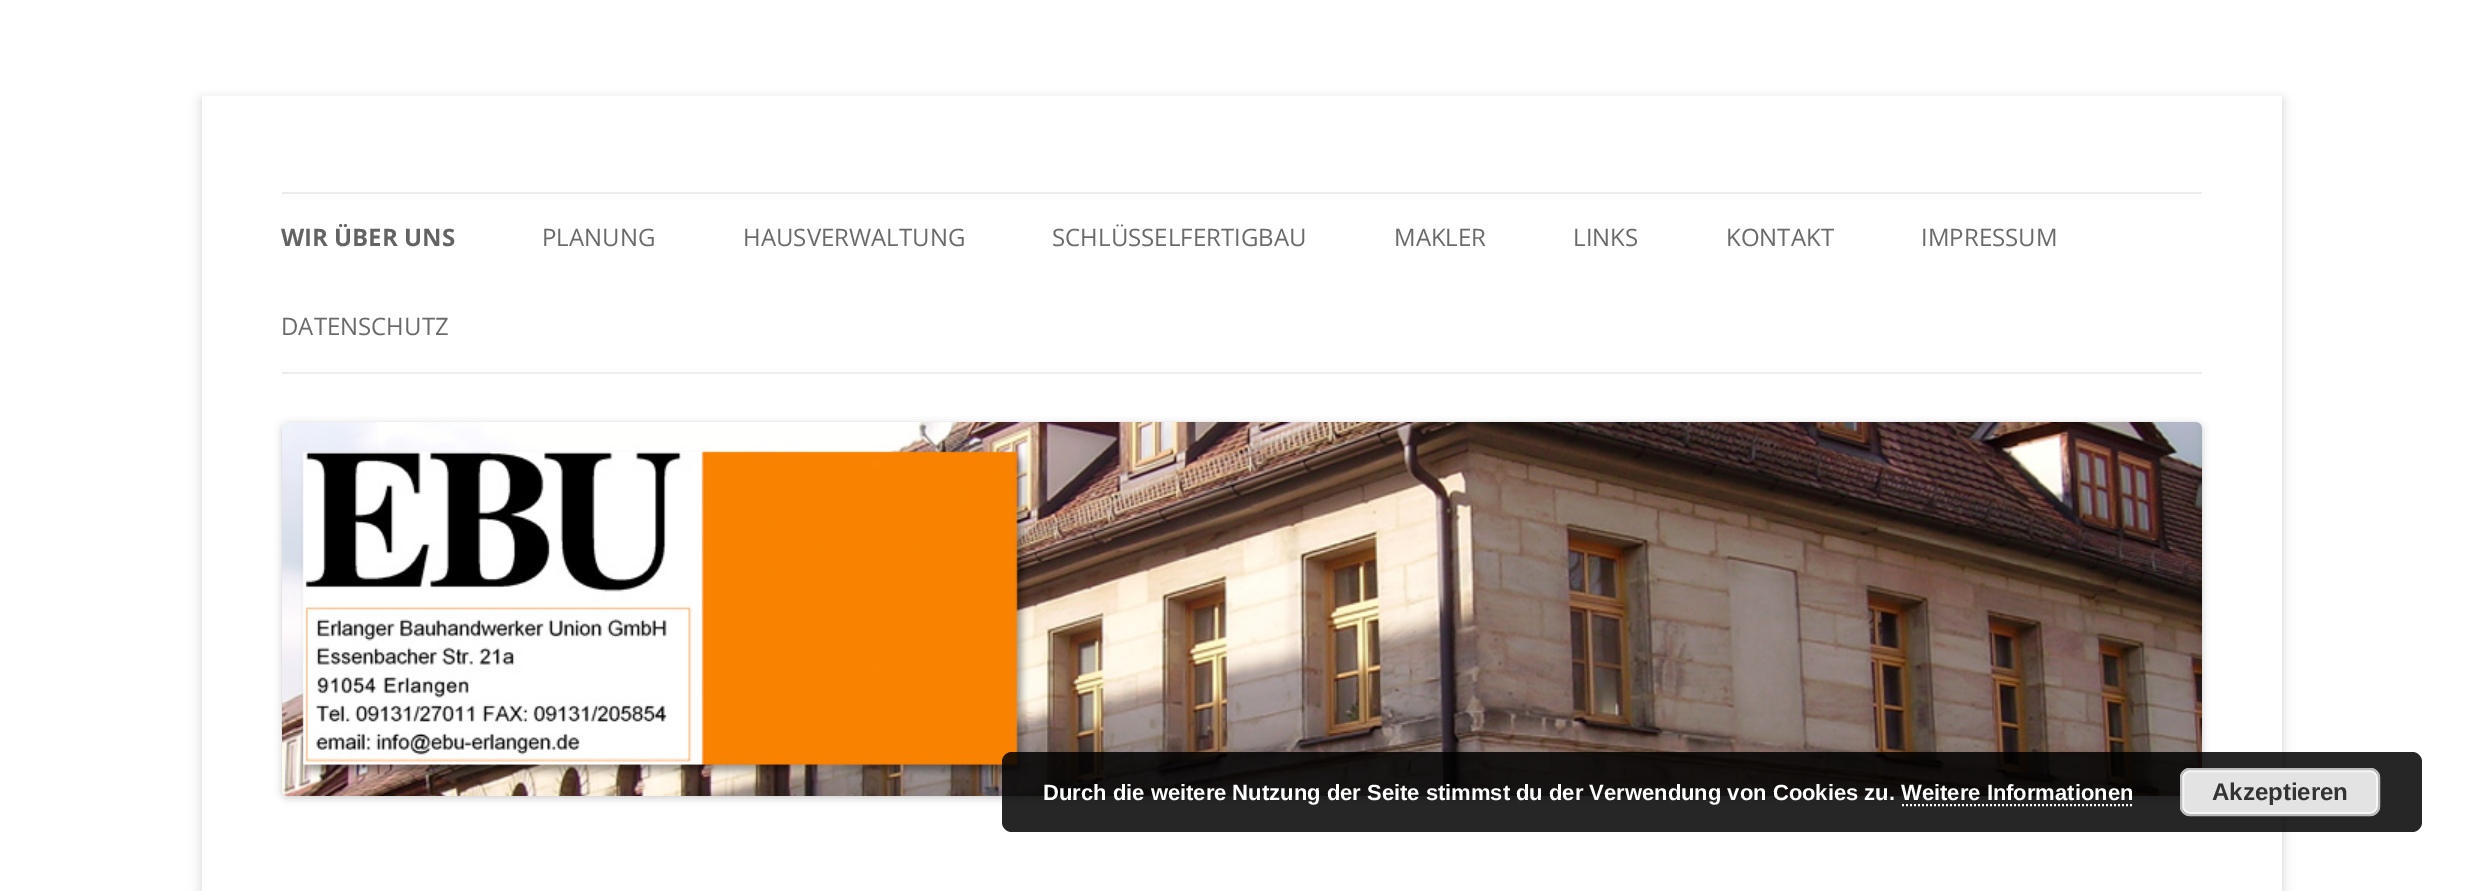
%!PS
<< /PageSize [2482 891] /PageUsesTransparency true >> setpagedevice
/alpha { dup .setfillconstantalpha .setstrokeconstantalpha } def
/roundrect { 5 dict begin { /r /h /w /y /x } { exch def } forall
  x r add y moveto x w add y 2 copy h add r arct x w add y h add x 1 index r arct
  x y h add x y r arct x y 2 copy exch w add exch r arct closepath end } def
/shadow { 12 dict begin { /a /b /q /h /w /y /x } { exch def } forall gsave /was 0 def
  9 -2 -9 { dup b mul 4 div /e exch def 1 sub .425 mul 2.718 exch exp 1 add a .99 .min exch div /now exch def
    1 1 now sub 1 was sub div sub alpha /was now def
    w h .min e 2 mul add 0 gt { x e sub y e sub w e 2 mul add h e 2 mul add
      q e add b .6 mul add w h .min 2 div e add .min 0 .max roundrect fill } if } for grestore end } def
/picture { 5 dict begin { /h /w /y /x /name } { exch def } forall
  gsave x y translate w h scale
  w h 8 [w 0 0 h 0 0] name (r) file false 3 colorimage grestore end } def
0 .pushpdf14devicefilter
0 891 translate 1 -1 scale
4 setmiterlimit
1 setgray
0 0 2482 891 rectfill
gsave
newpath 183 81 moveto 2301 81 lineto 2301 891 lineto 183 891 lineto closepath 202 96 moveto 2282 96 lineto 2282 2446 lineto 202 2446 lineto closepath eoclip newpath
0.392 setgray
202 100 2080 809 0 6 0.3 shadow
grestore
0.929 setgray
282 192 1920 2 rectfill
282 372 1920 2 rectfill
/OpenSans-Bold [24 0 0 -24 0 0] selectfont
0.388 setgray
281 246 moveto (WIR ÜBER UNS) show
/OpenSans-Regular [24 0 0 -24 0 0] selectfont
0.416 setgray
542 246 moveto (PLANUNG) show
743 246 moveto (HAUSVERWALTUNG) show
1052 246 moveto (SCHLÜSSELFERTIGBAU) show
1394 246 moveto (MAKLER) show
1573 246 moveto (LINKS) show
1726 246 moveto (KONTAKT) show
1921 246 moveto (IMPRESSUM) show
281 335 moveto (DATENSCHUTZ) show
0 setgray
282 424 1920 374 6 4 0.2 shadow
(img1.rgb) 282 422 1920 374 picture
0.85 alpha
1002 752 1420 80 10 roundrect fill
/LiberationSans-Bold [22 0 0 -22 0 0] selectfont
1 alpha
1 setgray
1043 800 moveto (Durch die weitere Nutzung der Seite stimmst du der Verwendung von Cookies zu. Weitere Informationen) show
0.89 setgray
2180 768 200 48 10 roundrect fill
0.965 setgray
2 setlinewidth
2183 771 194 42 7 roundrect stroke
0.733 setgray
2181 769 198 46 9 roundrect stroke
/LiberationSans-Bold [24 0 0 -24 0 0] selectfont
0.2 setgray
2212 800 moveto (Akzeptieren) show
1 setgray
[2 2] 0 setdash
newpath 1902 805 moveto 2134 805 lineto stroke
.poppdf14devicefilter showpage
